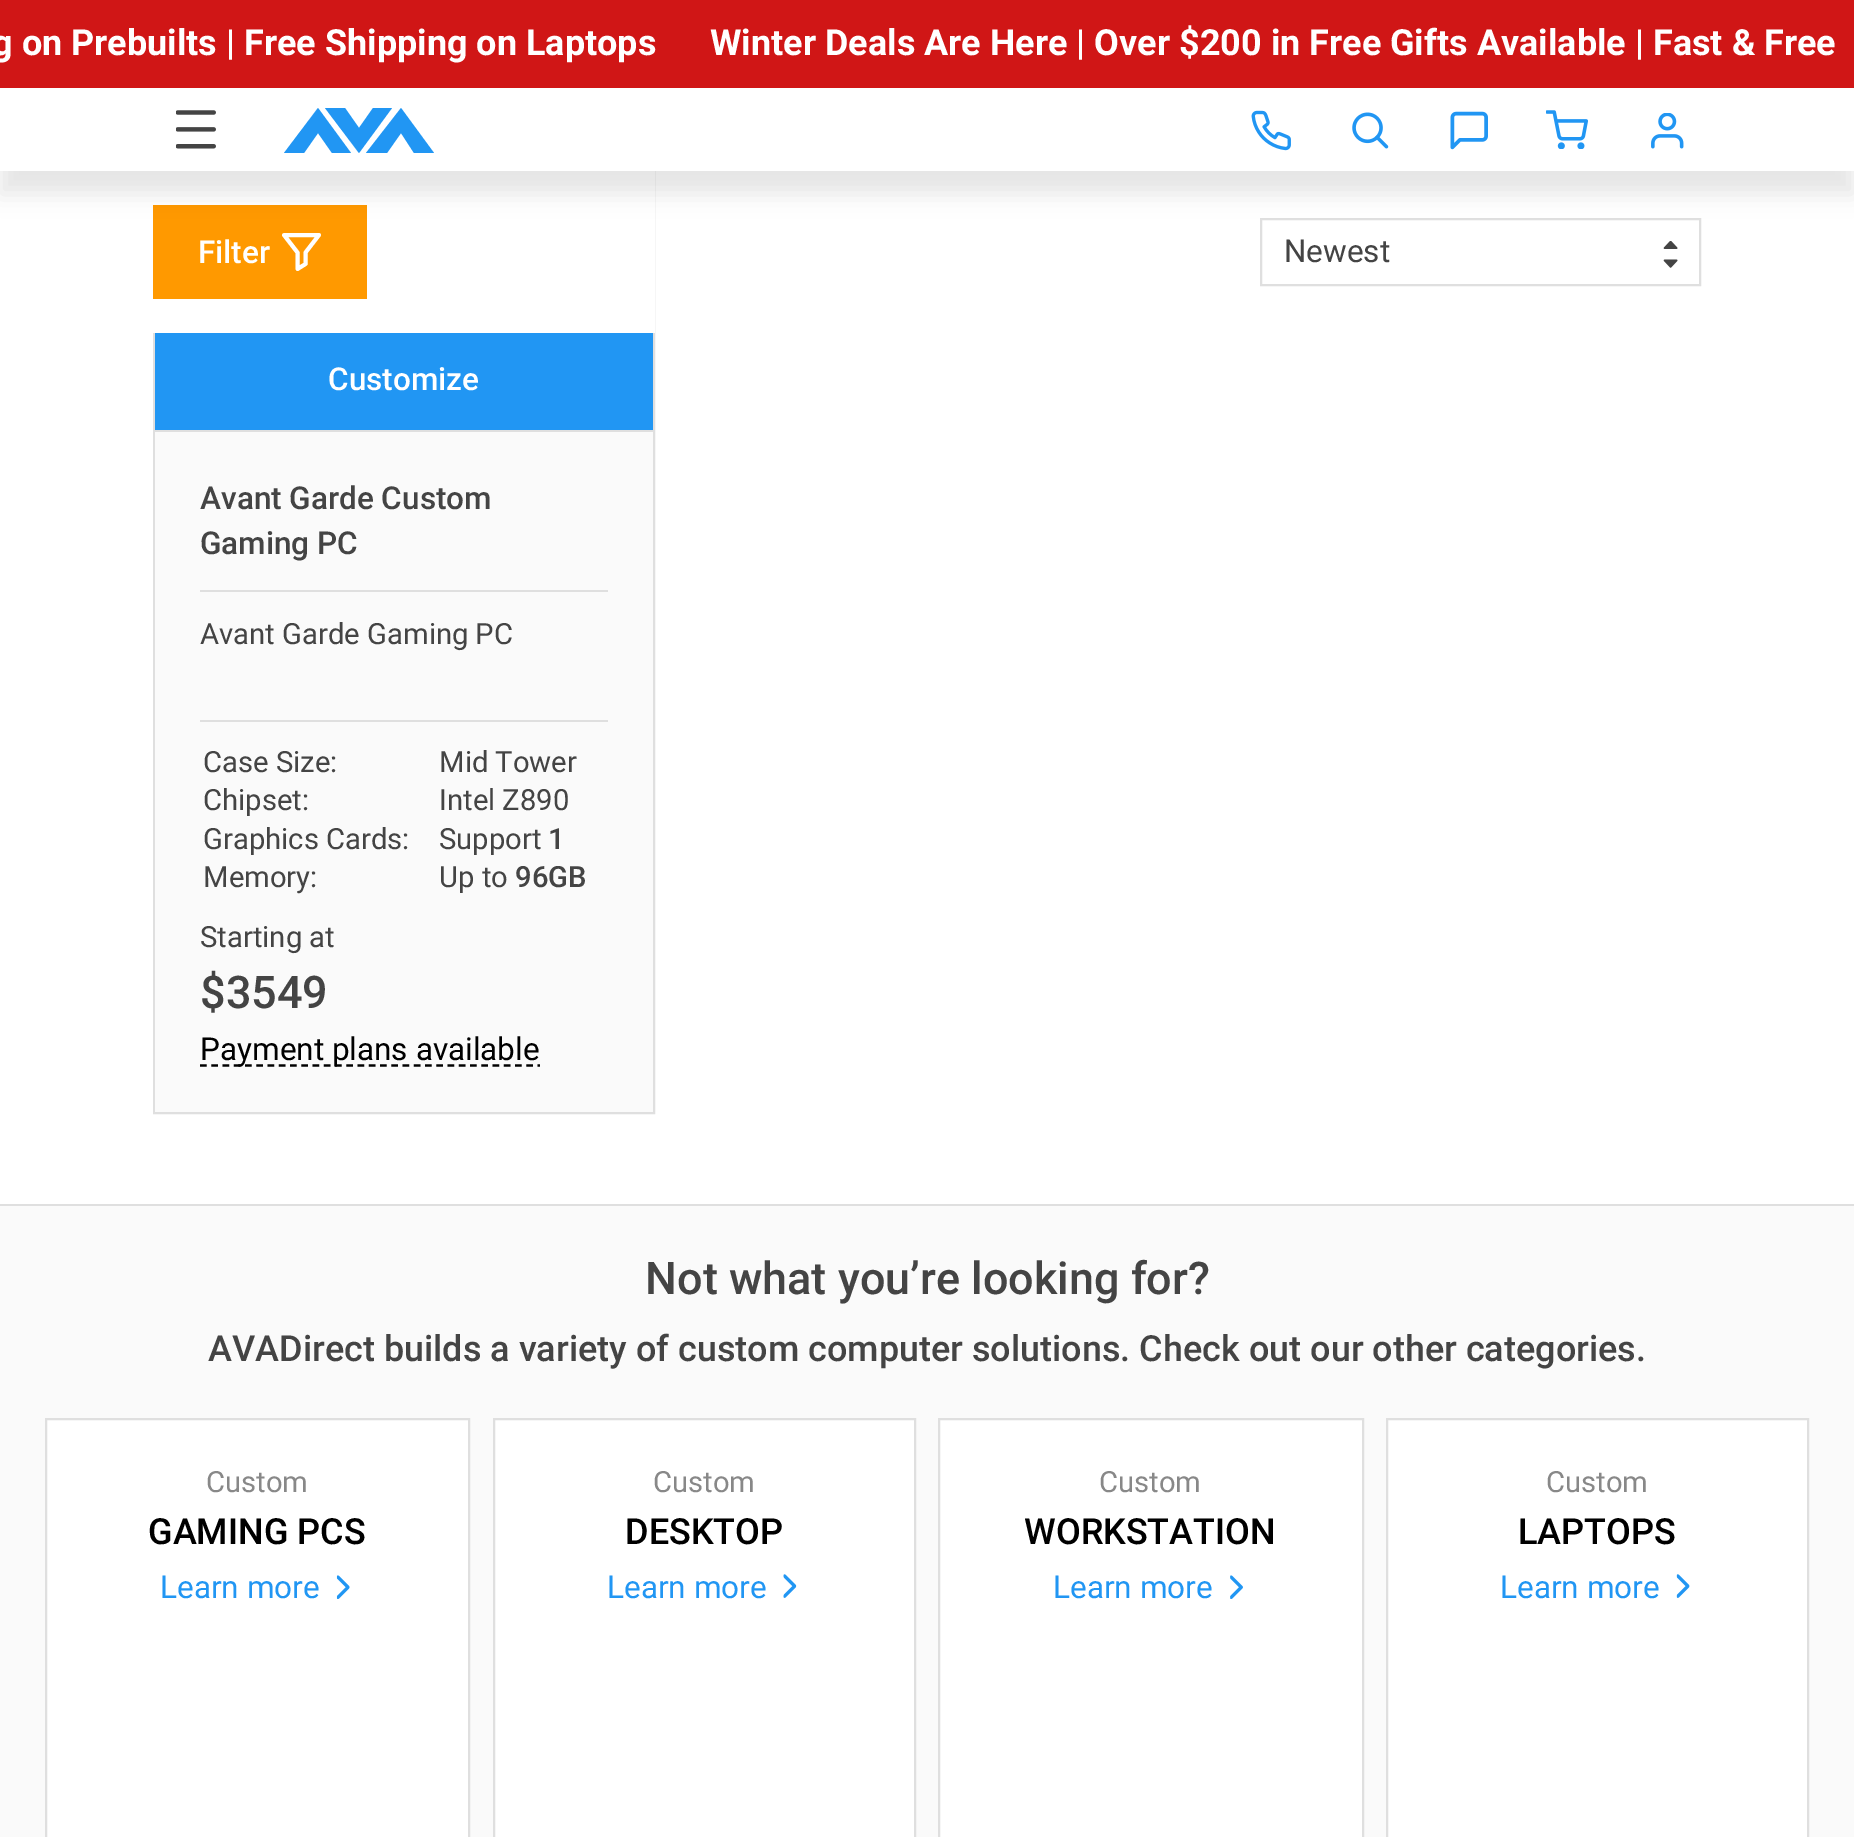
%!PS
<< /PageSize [1854 1837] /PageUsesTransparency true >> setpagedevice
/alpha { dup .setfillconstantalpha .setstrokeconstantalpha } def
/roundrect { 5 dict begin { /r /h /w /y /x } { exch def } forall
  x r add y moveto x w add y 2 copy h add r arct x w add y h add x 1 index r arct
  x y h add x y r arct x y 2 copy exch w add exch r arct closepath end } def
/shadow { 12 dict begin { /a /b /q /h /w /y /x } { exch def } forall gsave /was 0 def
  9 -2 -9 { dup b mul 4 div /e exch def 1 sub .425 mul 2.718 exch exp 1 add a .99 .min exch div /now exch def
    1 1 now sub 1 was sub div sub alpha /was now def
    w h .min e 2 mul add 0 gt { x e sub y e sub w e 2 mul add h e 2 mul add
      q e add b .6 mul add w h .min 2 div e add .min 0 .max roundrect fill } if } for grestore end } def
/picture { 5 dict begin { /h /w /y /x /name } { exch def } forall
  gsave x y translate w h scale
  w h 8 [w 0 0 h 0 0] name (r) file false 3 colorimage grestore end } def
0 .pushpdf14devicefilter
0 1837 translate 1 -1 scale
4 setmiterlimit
1 setgray
0 0 1854 1837 rectfill
0.875 setgray
2 setlinewidth
154 -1 500 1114 rectstroke
1 setgray
153 171 502 162 rectfill
1 0.6 0 setrgbcolor
153 205 214 94 rectfill
0.875 setgray
1261 219 439 66 rectstroke
0 setgray
0 110 1854 84 0 11 0.1 shadow
0.816 0.086 0.086 setrgbcolor
0 0 1854 88 rectfill
/Roboto-Bold [36 0 0 -36 0 0] selectfont
1 setgray
-8 55 moveto (g on Prebuilts | Free Shipping on Laptops) show
710 55 moveto (Winter Deals Are Here | Over $200 in Free Gifts Available | Fast & Free) show
0 88 1854 83 rectfill
(img1.rgb) 176 110 40 39 picture
0.129 0.588 0.953 setrgbcolor
newpath 332 153 moveto 351 153 lineto 318 108 lineto 284 153 lineto 304 153 lineto 318 133 lineto closepath 414 153 moveto 434 153 lineto 401 108 lineto 366 153 lineto 387 153 lineto 401 133 lineto closepath 373 108 moveto 392 108 lineto 359 153 lineto 325 108 lineto 345 108 lineto 359 128 lineto closepath fill
(img2.rgb) 1251 110 40 41 picture
(img3.rgb) 1352 112 37 37 picture
(img4.rgb) 1450 111 38 39 picture
(img5.rgb) 1546 110 42 39 picture
(img6.rgb) 1651 113 33 36 picture
/Roboto-Medium [31.5 0 0 -31.5 0 0] selectfont
1 setgray
198 263 moveto (Filter) show
3.9 setlinewidth
1 setlinecap
1 setlinejoin
newpath 319 235 moveto 284 235 lineto 297.5 252.5 lineto 297.5 269 lineto 305.5 264 lineto 305.5 252.5 lineto closepath stroke
/Roboto-Regular [31.5 0 0 -31.5 0 0] selectfont
0.267 setgray
1284 262 moveto (Newest) show
(img7.rgb) 1663 241 15 27 picture
0.129 0.588 0.953 setrgbcolor
155 333 498 97 rectfill
/Roboto-Medium [31.5 0 0 -31.5 0 0] selectfont
1 setgray
328 390 moveto (Customize) show
0.98 setgray
155 432 498 680 rectfill
0.875 setgray
155 430 498 2 rectfill
200 590 408 2 rectfill
0.267 setgray
200 509 moveto (Avant Garde Custom) show
200 554 moveto (Gaming PC) show
0.875 setgray
200 720 408 2 rectfill
/Roboto-Regular [29.25 0 0 -29.25 0 0] selectfont
0.267 setgray
200 644 moveto (Avant Garde Gaming PC) show
203 772 moveto (Case Size:) show
439 772 moveto (Mid Tower) show
203 810 moveto (Chipset:) show
439 810 moveto (Intel Z890) show
203 849 moveto (Graphics Cards:) show
439 849 moveto (Support) show
/Roboto-Medium [29.25 0 0 -29.25 0 0] selectfont
548 849 moveto (1) show
/Roboto-Regular [29.25 0 0 -29.25 0 0] selectfont
203 887 moveto (Memory:) show
439 887 moveto (Up to) show
/Roboto-Medium [29.25 0 0 -29.25 0 0] selectfont
515 887 moveto (96GB) show
/Roboto-Regular [29.25 0 0 -29.25 0 0] selectfont
200 947 moveto (Starting at) show
/Roboto-Medium [45 0 0 -45 0 0] selectfont
200 1008 moveto ($3549) show
0 setgray
2.2 setlinewidth
0 setlinecap
0 setlinejoin
[6.75 4.5] 0 setdash
newpath 200 1065.5 moveto 540 1065.5 lineto stroke
/Roboto-Regular [31.5 0 0 -31.5 0 0] selectfont
200 1060 moveto (Payment plans available) show
0.98 setgray
0 1206 1854 631 rectfill
0.875 setgray
0 1204 1854 2 rectfill
/Roboto-Medium [45 0 0 -45 0 0] selectfont
0.267 setgray
645 1294 moveto (Not what you’re looking for?) show
/Roboto-Medium [36 0 0 -36 0 0] selectfont
208 1361 moveto (AVADirect builds a variety of custom computer solutions. Check out our other categories.) show
1 setgray
newpath 46 1419 moveto 469 1419 lineto 469 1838 lineto 46 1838 lineto closepath gsave fill grestore
0.875 setgray
2 setlinewidth
[] 0 setdash
stroke
/Roboto-Regular [29.25 0 0 -29.25 0 0] selectfont
0.533 setgray
206 1492 moveto (Custom) show
/Roboto-Medium [36 0 0 -36 0 0] selectfont
0 setgray
148 1544 moveto (GAMING PCS) show
/Roboto-Regular [31.5 0 0 -31.5 0 0] selectfont
0.129 0.588 0.953 setrgbcolor
160 1598 moveto (Learn more) show
(img8.rgb) 336 1575 14 24 picture
1 setgray
newpath 494 1419 moveto 915 1419 lineto 915 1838 lineto 494 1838 lineto closepath gsave fill grestore
0.875 setgray
stroke
/Roboto-Regular [29.25 0 0 -29.25 0 0] selectfont
0.533 setgray
653 1492 moveto (Custom) show
/Roboto-Medium [36 0 0 -36 0 0] selectfont
0 setgray
625 1544 moveto (DESKTOP) show
/Roboto-Regular [31.5 0 0 -31.5 0 0] selectfont
0.129 0.588 0.953 setrgbcolor
607 1598 moveto (Learn more) show
(img9.rgb) 783 1574 14 24 picture
1 setgray
newpath 939 1419 moveto 1363 1419 lineto 1363 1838 lineto 939 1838 lineto closepath gsave fill grestore
0.875 setgray
stroke
/Roboto-Regular [29.25 0 0 -29.25 0 0] selectfont
0.533 setgray
1099 1492 moveto (Custom) show
/Roboto-Medium [36 0 0 -36 0 0] selectfont
0 setgray
1024 1544 moveto (WORKSTATION) show
/Roboto-Regular [31.5 0 0 -31.5 0 0] selectfont
0.129 0.588 0.953 setrgbcolor
1053 1598 moveto (Learn more) show
(img10.rgb) 1230 1575 13 24 picture
1 setgray
newpath 1387 1419 moveto 1808 1419 lineto 1808 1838 lineto 1387 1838 lineto closepath gsave fill grestore
0.875 setgray
stroke
/Roboto-Regular [29.25 0 0 -29.25 0 0] selectfont
0.533 setgray
1546 1492 moveto (Custom) show
/Roboto-Medium [36 0 0 -36 0 0] selectfont
0 setgray
1518 1544 moveto (LAPTOPS) show
/Roboto-Regular [31.5 0 0 -31.5 0 0] selectfont
0.129 0.588 0.953 setrgbcolor
1500 1598 moveto (Learn more) show
(img11.rgb) 1676 1574 14 24 picture
.poppdf14devicefilter showpage
